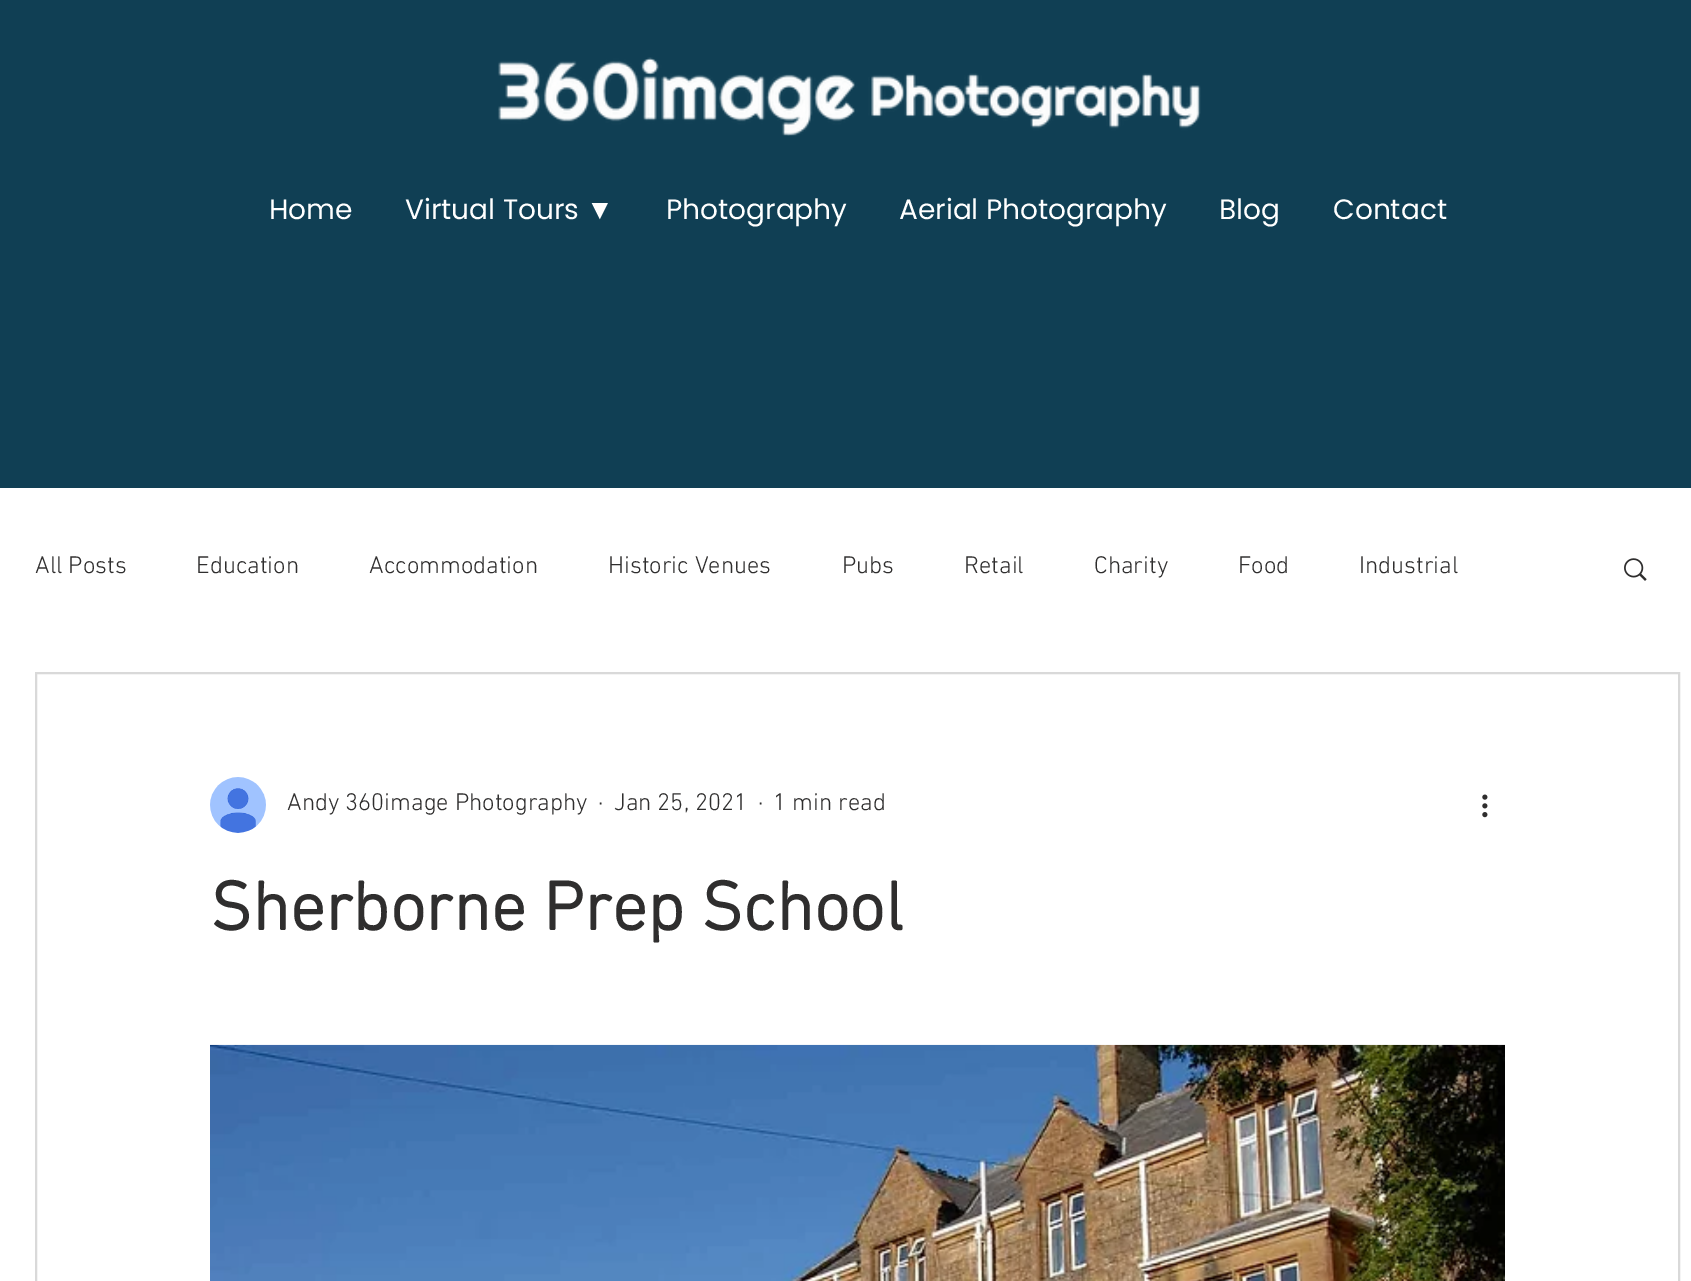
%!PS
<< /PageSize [1691 1281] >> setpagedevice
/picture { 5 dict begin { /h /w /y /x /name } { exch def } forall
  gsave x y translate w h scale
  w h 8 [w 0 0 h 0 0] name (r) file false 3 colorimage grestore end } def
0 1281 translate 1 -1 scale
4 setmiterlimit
1 setgray
0 0 1691 1281 rectfill
0.063 0.247 0.329 setrgbcolor
0 0 1691 488 rectfill
(img1.rgb) 498 57 703 79 picture
/Poppins-Regular [28 0 0 -28 0 0] selectfont
1 setgray
269 219 moveto (Home) show
405 219 moveto (Virtual Tours) show
/LiberationSerif-Regular [28 0 0 -28 0 0] selectfont
586 219 moveto (▼) show
/Poppins-Regular [28 0 0 -28 0 0] selectfont
666 219 moveto (Photography) show
899 219 moveto (Aerial Photography) show
1219 219 moveto (Blog) show
1333 219 moveto (Contact) show
/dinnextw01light-Light [24.5 0 0 -24.5 0 0] selectfont
0.184 0.18 0.18 setrgbcolor
35 573 moveto (All Posts) show
196 573 moveto (Education) show
369 573 moveto (Accommodation) show
608 573 moveto (Historic Venues) show
842 573 moveto (Pubs) show
964 573 moveto (Retail) show
1094 573 moveto (Charity) show
1238 573 moveto (Food) show
1359 573 moveto (Industrial) show
(img2.rgb) 1624 558 23 23 picture
0.851 setgray
2 setlinewidth
36 673 1643 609 rectstroke
(img3.rgb) 210 777 56 56 picture
0.184 0.18 0.18 setrgbcolor
287 810 moveto (Andy 360image Photography) show
598 810 moveto (·) show
614 810 moveto (Jan 25, 2021) show
758 810 moveto (·) show
773 810 moveto (1 min read) show
(img4.rgb) 1482 794 6 24 picture
/dinnextw01light-Bold [70 0 0 -70 0 0] selectfont
210 930 moveto (Sherborne Prep School) show
(img5.rgb) 210 1044 1295 237 picture
showpage
